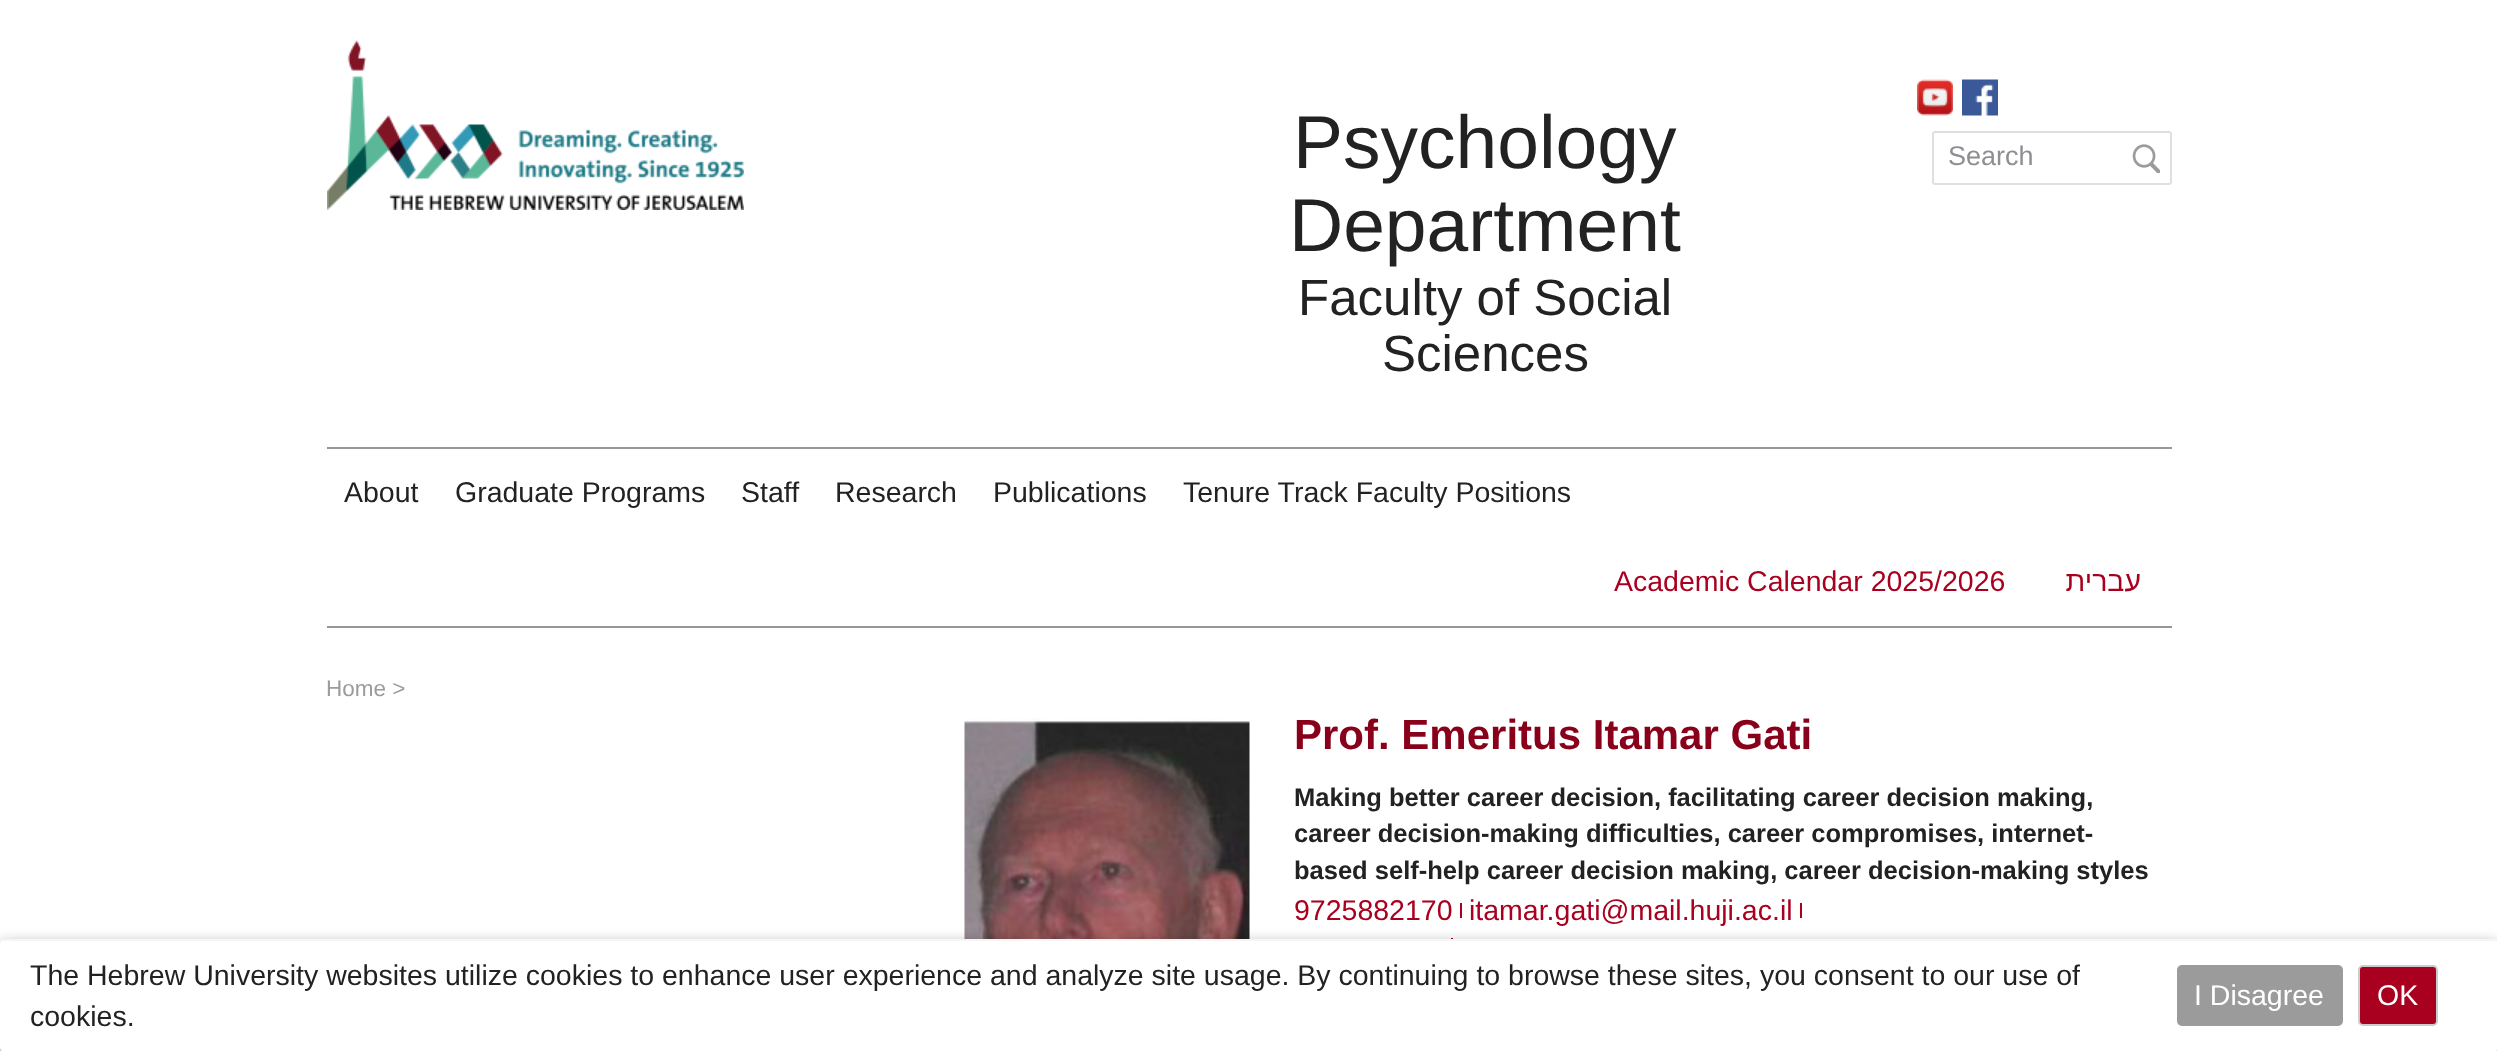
(async () => {
const canvas = document.querySelector("canvas")
canvas.width = 2497
canvas.height = 1051
const c = canvas.getContext("2d")
c.miterLimit = 4
c.fontKerning = "normal"
function T(s,x,y){c.fillText(s,x,y)}
function R(x,y,w,h){c.fillRect(x,y,w,h)}
function Q(x,y,w,h,r){c.beginPath();c.roundRect(x,y,w,h,r);c.fill()}
async function I(src,x,y,w,h){const img=new Image();img.src=src;await img.decode();c.drawImage(img,x,y,w,h)}
c.fillStyle="#fff"
R(0,0,2497,1051)
await I("1.png",327,40,417,170)
c.font="75px Liberation Sans"
c.fillStyle="#222"
T("Psychology",1293,168)
T("Department",1289,251)
c.font="51px Liberation Sans"
T("Faculty of Social",1298,315)
T("Sciences",1382,371)
await I("2.png",1917,79,36,37)
await I("3.png",1962,79,36,37)
c.beginPath()
c.roundRect(1933,132,238,52,2)
c.strokeStyle="#e0e0e0"
c.lineWidth=2
c.stroke()
c.font="27px Liberation Sans"
c.fillStyle="#8e8e93"
T("Search",1948,165)
await I("4.png",2132,144,28,29)
c.fillStyle="#979797"
R(327,447,1845,2)
c.font="28.5px Liberation Sans"
c.fillStyle="#222"
T("About",344,502)
T("Graduate Programs",455,502)
T("Staff",741,502)
T("Research",835,502)
T("Publications",993,502)
T("Tenure Track Faculty Positions",1183,502)
c.fillStyle="#a90020"
T("Academic Calendar 2025/2026",1614,591)
c.direction="rtl"
T("עברית",2141,591)
c.fillStyle="#979797"
R(327,626,1845,2)
c.direction="ltr"
c.font="22.5px Liberation Sans"
c.fillStyle="#9b9b9b"
T("Home >",326,696)
await I("5.png",964,718,286,221)
c.font="bold 42px Liberation Sans"
c.fillStyle="#89001a"
T("Prof. Emeritus Itamar Gati",1294,749)
c.font="bold 25.5px Liberation Sans"
c.fillStyle="#222"
T("Making better career decision, facilitating career decision making,",1294,806)
T("career decision-making difficulties, career compromises, internet-",1294,842)
T("based self-help career decision making, career decision-making styles",1294,879)
c.font="28.5px Liberation Sans"
c.fillStyle="#a90020"
T("9725882170",1294,920)
R(1460,903,2,15)
T("itamar.gati@mail.huji.ac.il",1469,920)
R(1800,903,2,15)
R(1451,938,2,1)
c.fillStyle="#0000007a"
c.filter="blur(7.5px)"
c.beginPath()
c.roundRect(0,945,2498,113,5)
c.fill()
c.filter="none"
c.fillStyle="#fff"
Q(0,939,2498,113,5)
c.fillStyle="#f5f5f5"
R(3,939,2493,2)
c.fillStyle="#222"
T("The Hebrew University websites utilize cookies to enhance user experience and analyze site usage. By continuing to browse these sites, you consent to our use of",30,985)
T("cookies.",30,1026)
c.fillStyle="#9b9b9b"
Q(2177,965,166,61,5)
c.fillStyle="#fff"
T("I Disagree",2194,1005)
c.fillStyle="#a90020"
c.beginPath()
c.roundRect(2359,966,78,59,4)
c.fill()
c.strokeStyle="#ccc"
c.stroke()
c.fillStyle="#fff"
T("OK",2377,1005)
})()
